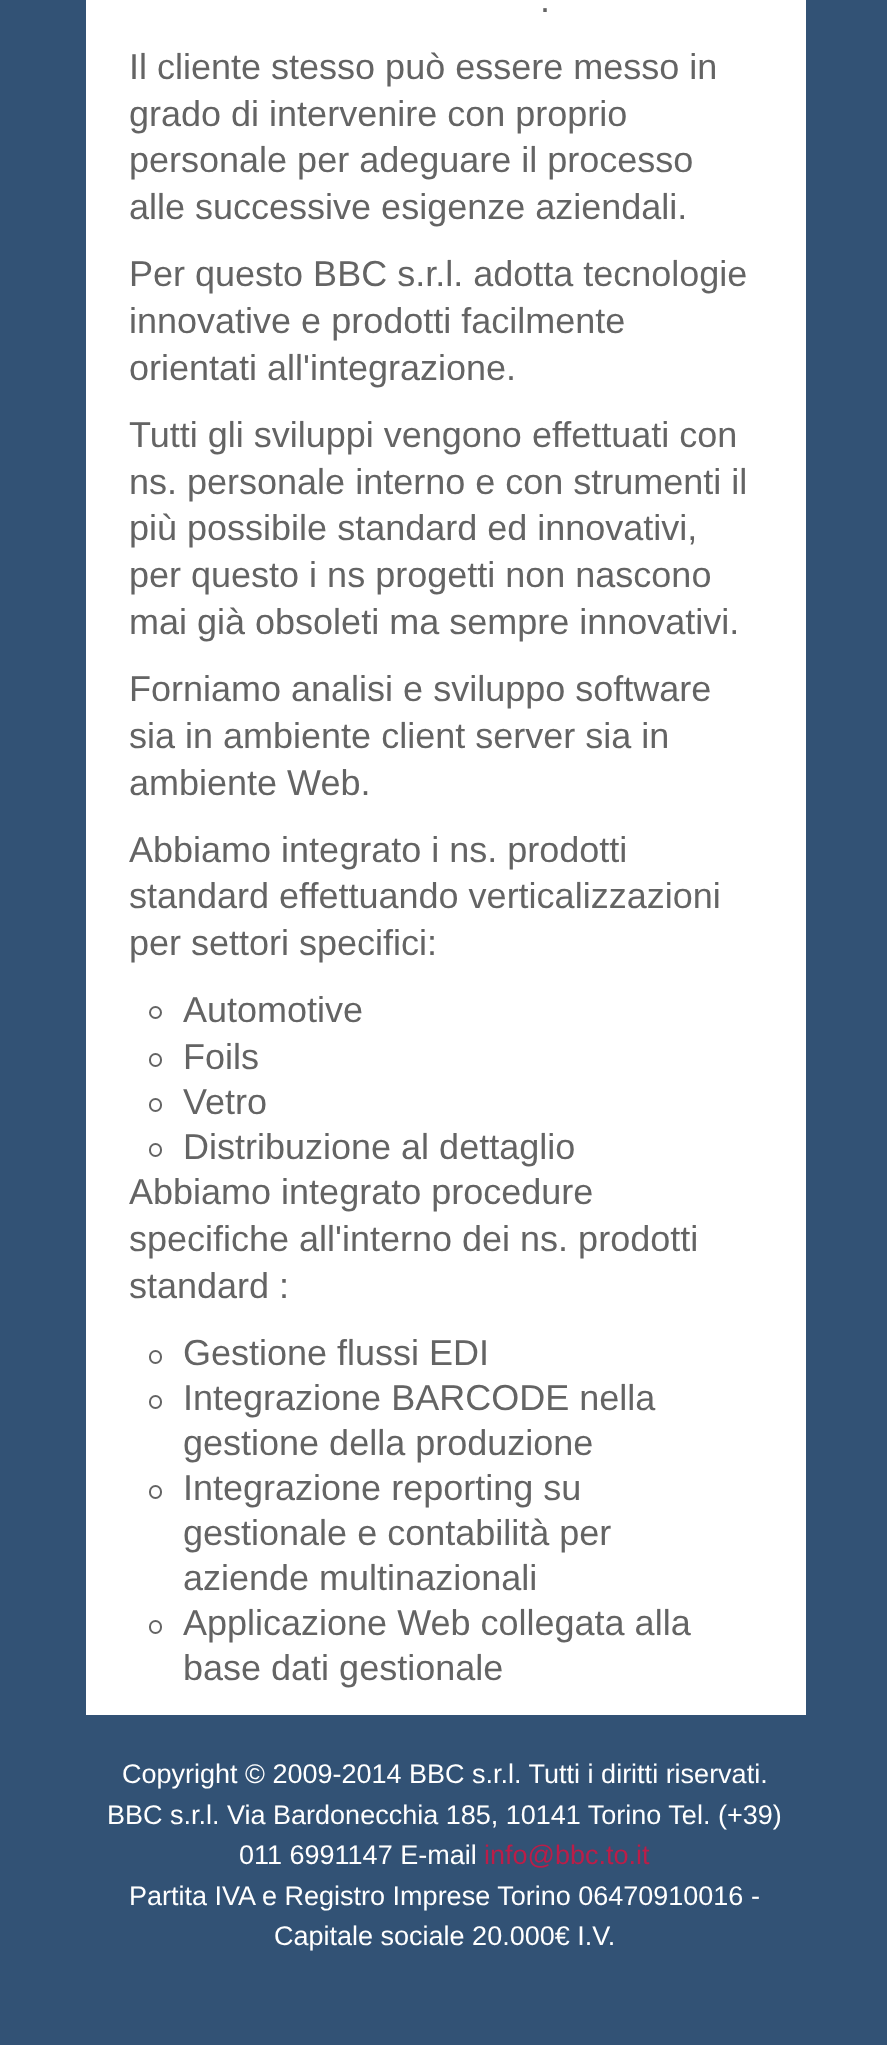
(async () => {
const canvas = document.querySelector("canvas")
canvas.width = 887
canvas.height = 2045
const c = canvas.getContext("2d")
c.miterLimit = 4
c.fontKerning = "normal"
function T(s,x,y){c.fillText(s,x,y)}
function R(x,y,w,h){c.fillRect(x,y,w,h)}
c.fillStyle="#325275"
R(0,0,887,2045)
c.fillStyle="#fff"
R(86,0,720,1715)
c.font="36px Liberation Sans"
c.fillStyle="#646464"
T(".",540,12)
T("Il cliente stesso può essere messo in",129,79)
T("grado di intervenire con proprio",129,126)
T("personale per adeguare il processo",129,172)
T("alle successive esigenze aziendali.",129,219)
T("Per questo BBC s.r.l. adotta tecnologie",129,286)
T("innovative e prodotti facilmente",129,333)
T("orientati all'integrazione.",129,380)
T("Tutti gli sviluppi vengono effettuati con",129,447)
T("ns. personale interno e con strumenti il",129,494)
T("più possibile standard ed innovativi,",129,540)
T("per questo i ns progetti non nascono",129,587)
T("mai già obsoleti ma sempre innovativi.",129,634)
T("Forniamo analisi e sviluppo software",129,701)
T("sia in ambiente client server sia in",129,748)
T("ambiente Web.",129,795)
T("Abbiamo integrato i ns. prodotti",129,862)
T("standard effettuando verticalizzazioni",129,908)
T("per settori specifici:",129,955)
c.beginPath()
c.arc(155.5,1012.5,5.5,0,7)
c.strokeStyle="#646464"
c.lineWidth=2
c.stroke()
T("Automotive",183,1022)
c.beginPath()
c.roundRect(150,1054,11,12,5.5)
c.stroke()
T("Foils",183,1069)
c.beginPath()
c.roundRect(150,1099,11,12,5.5)
c.stroke()
T("Vetro",183,1114)
c.beginPath()
c.roundRect(150,1144,11,12,5.5)
c.stroke()
T("Distribuzione al dettaglio",183,1159)
T("Abbiamo integrato procedure",129,1204)
T("specifiche all'interno dei ns. prodotti",129,1251)
T("standard :",129,1298)
c.beginPath()
c.roundRect(150,1351,11,12,5.5)
c.stroke()
T("Gestione flussi EDI",183,1365)
c.beginPath()
c.roundRect(150,1396,11,12,5.5)
c.stroke()
T("Integrazione BARCODE nella",183,1410)
T("gestione della produzione",183,1455)
c.beginPath()
c.roundRect(150,1486,11,12,5.5)
c.stroke()
T("Integrazione reporting su",183,1500)
T("gestionale e contabilità per",183,1545)
T("aziende multinazionali",183,1590)
c.beginPath()
c.roundRect(150,1621,11,12,5.5)
c.stroke()
T("Applicazione Web collegata alla",183,1635)
T("base dati gestionale",183,1680)
c.font="27px Liberation Sans"
c.fillStyle="#fff"
T("Copyright © 2009-2014 BBC s.r.l. Tutti i diritti riservati.",122,1783)
T("BBC s.r.l. Via Bardonecchia 185, 10141 Torino Tel. (+39)",107,1824)
T("011 6991147 E-mail",239,1864)
c.fillStyle="#bb1d48"
T("info@bbc.to.it",484,1864)
c.fillStyle="#fff"
T("Partita IVA e Registro Imprese Torino 06470910016 -",129,1905)
T("Capitale sociale 20.000€ I.V.",274,1945)
})()
